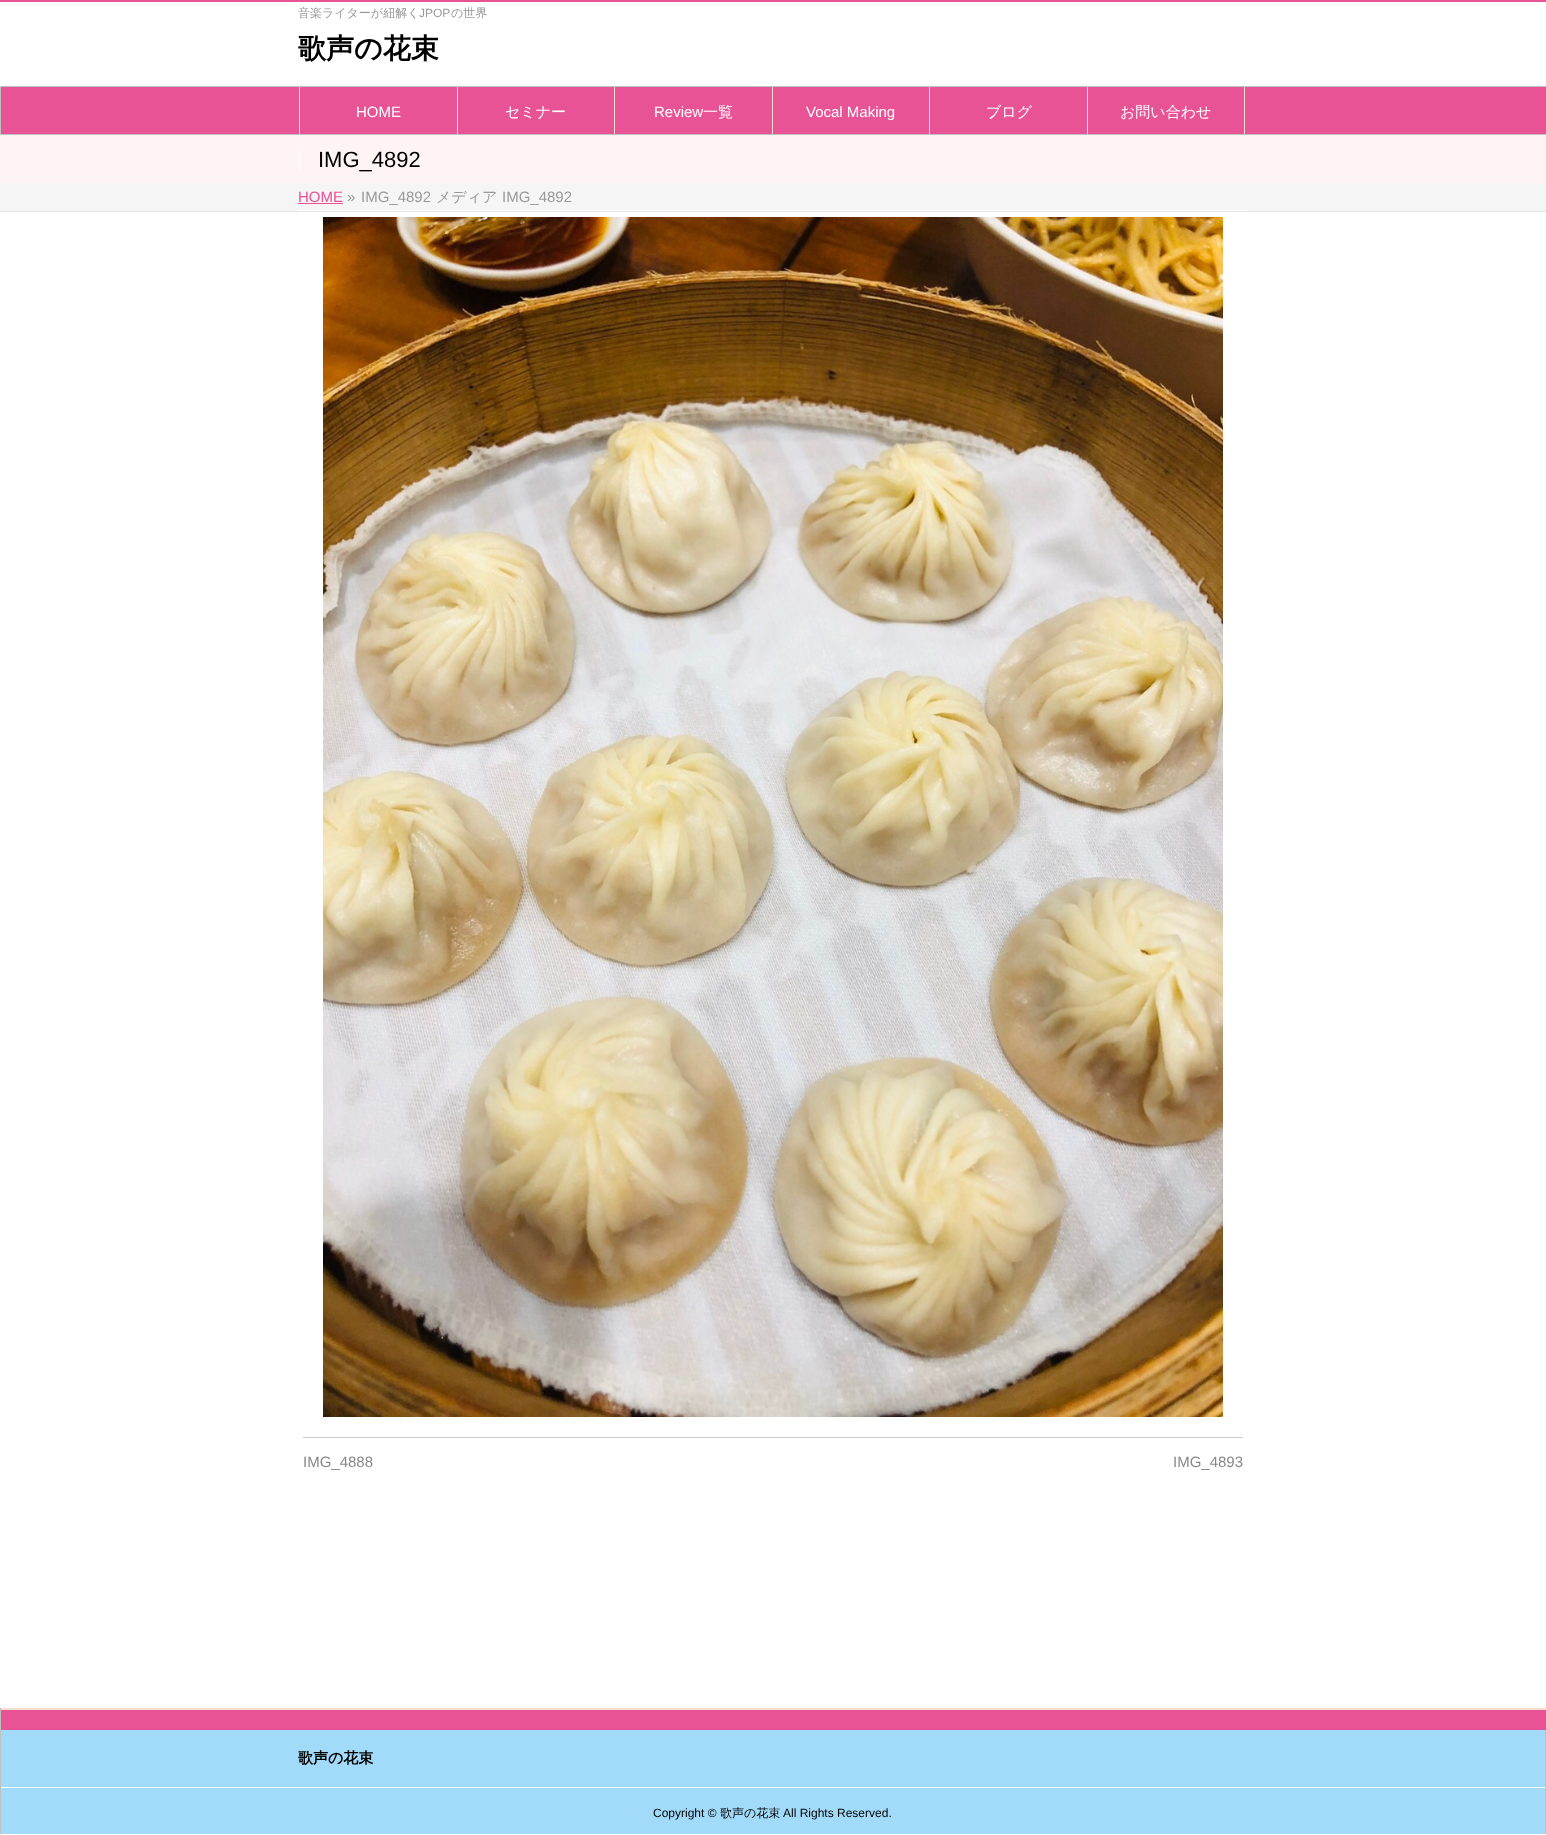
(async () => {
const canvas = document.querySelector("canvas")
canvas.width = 1546
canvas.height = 1835
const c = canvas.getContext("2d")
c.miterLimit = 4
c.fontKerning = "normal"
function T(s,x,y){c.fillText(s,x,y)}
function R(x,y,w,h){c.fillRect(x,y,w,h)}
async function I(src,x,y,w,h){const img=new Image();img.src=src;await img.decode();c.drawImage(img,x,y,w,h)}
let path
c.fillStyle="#fff"
R(0,0,1546,1835)
c.fillStyle="#e85396"
R(0,0,1546,2)
c.font="500 12px WenQuanYi Zen Hei"
c.fillStyle="#999"
T("音楽ライターが紐解く",298,17)
c.font="12px Liberation Sans"
T("JPOP",419,17)
c.font="500 12px WenQuanYi Zen Hei"
T("の世界",451,17)
c.font="bold 28px WenQuanYi Zen Hei"
c.fillStyle="#000"
T("歌声の花束",298,58)
c.fillStyle="#e85396"
c.beginPath()
c.rect(.5,86.5,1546,48)
c.fill()
c.strokeStyle="#c0c0c0"
c.stroke()
c.fillStyle="#f4e0d2"
R(299,87,1,47)
R(457,87,1,47)
c.font="15px Liberation Sans"
c.fillStyle="#fff"
T("HOME",356,117)
c.fillStyle="#f4e0d2"
R(614,87,1,47)
c.font="500 15px WenQuanYi Zen Hei"
c.fillStyle="#fff"
T("セミナー",505,117)
c.fillStyle="#f4e0d2"
R(772,87,1,47)
c.font="15px Liberation Sans"
c.fillStyle="#fff"
T("Review",654,117)
c.font="500 15px WenQuanYi Zen Hei"
T("一覧",703,117)
c.fillStyle="#f4e0d2"
R(929,87,1,47)
c.font="15px Liberation Sans"
c.fillStyle="#fff"
T("Vocal Making",806,117)
c.fillStyle="#f4e0d2"
R(1087,87,1,47)
c.font="500 15px WenQuanYi Zen Hei"
c.fillStyle="#fff"
T("ブログ",986,117)
c.fillStyle="#f4e0d2"
R(1244,87,1,47)
c.fillStyle="#fff"
T("お問い合わせ",1120,117)
c.fillStyle="#fef4f4"
R(0,135,1546,48)
await I("1.png",298,149,3,21)
c.font="22px Liberation Sans"
c.fillStyle="#000"
T("IMG_4892",318,167)
c.fillStyle="#f5f5f5"
R(0,183,1546,28)
c.fillStyle="#e5e5e5"
R(0,211,1546,1)
c.fillStyle="#fff"
R(298,210,950,1)
c.font="15px Liberation Sans"
c.fillStyle="#e85396"
T("HOME",298,202)
R(298,203,45,1)
c.fillStyle="#999"
T("»",347,202)
T("IMG_4892",361,202)
c.font="500 15px WenQuanYi Zen Hei"
T("メディア",436,202)
c.font="15px Liberation Sans"
T("IMG_4892",502,202)
await I("2.png",323,217,900,1200)
c.fillStyle="#ccc"
R(303,1437,940,1)
c.fillStyle="#888"
T("IMG_4888",303,1467)
T("IMG_4893",1173,1467)
c.fillStyle="#e85396"
R(0,1708,1546,22)
c.fillStyle="#f4e0d2"
path = new Path2D("M0 1708h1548l-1 2h-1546z")
c.fill(path)
c.fillStyle="#c0c0c0"
path = new Path2D("M0 1730v-22l1 2v20z")
c.fill(path)
c.fillStyle="#a2dbf9"
R(1,1730,1544,57)
c.font="bold 15px WenQuanYi Zen Hei"
c.fillStyle="#000"
T("歌声の花束",298,1763)
c.fillStyle="#a2dbf9"
R(1,1788,1544,46)
c.fillStyle="#c0c0c0"
R(1545,1730,1,104)
R(0,1730,1,104)
c.font="12px Liberation Sans"
c.fillStyle="#000"
T("Copyright ©",653,1817)
c.font="500 12px WenQuanYi Zen Hei"
T("歌声の花束",720,1817)
c.font="12px Liberation Sans"
T("All Rights Reserved.",783,1817)
})()
